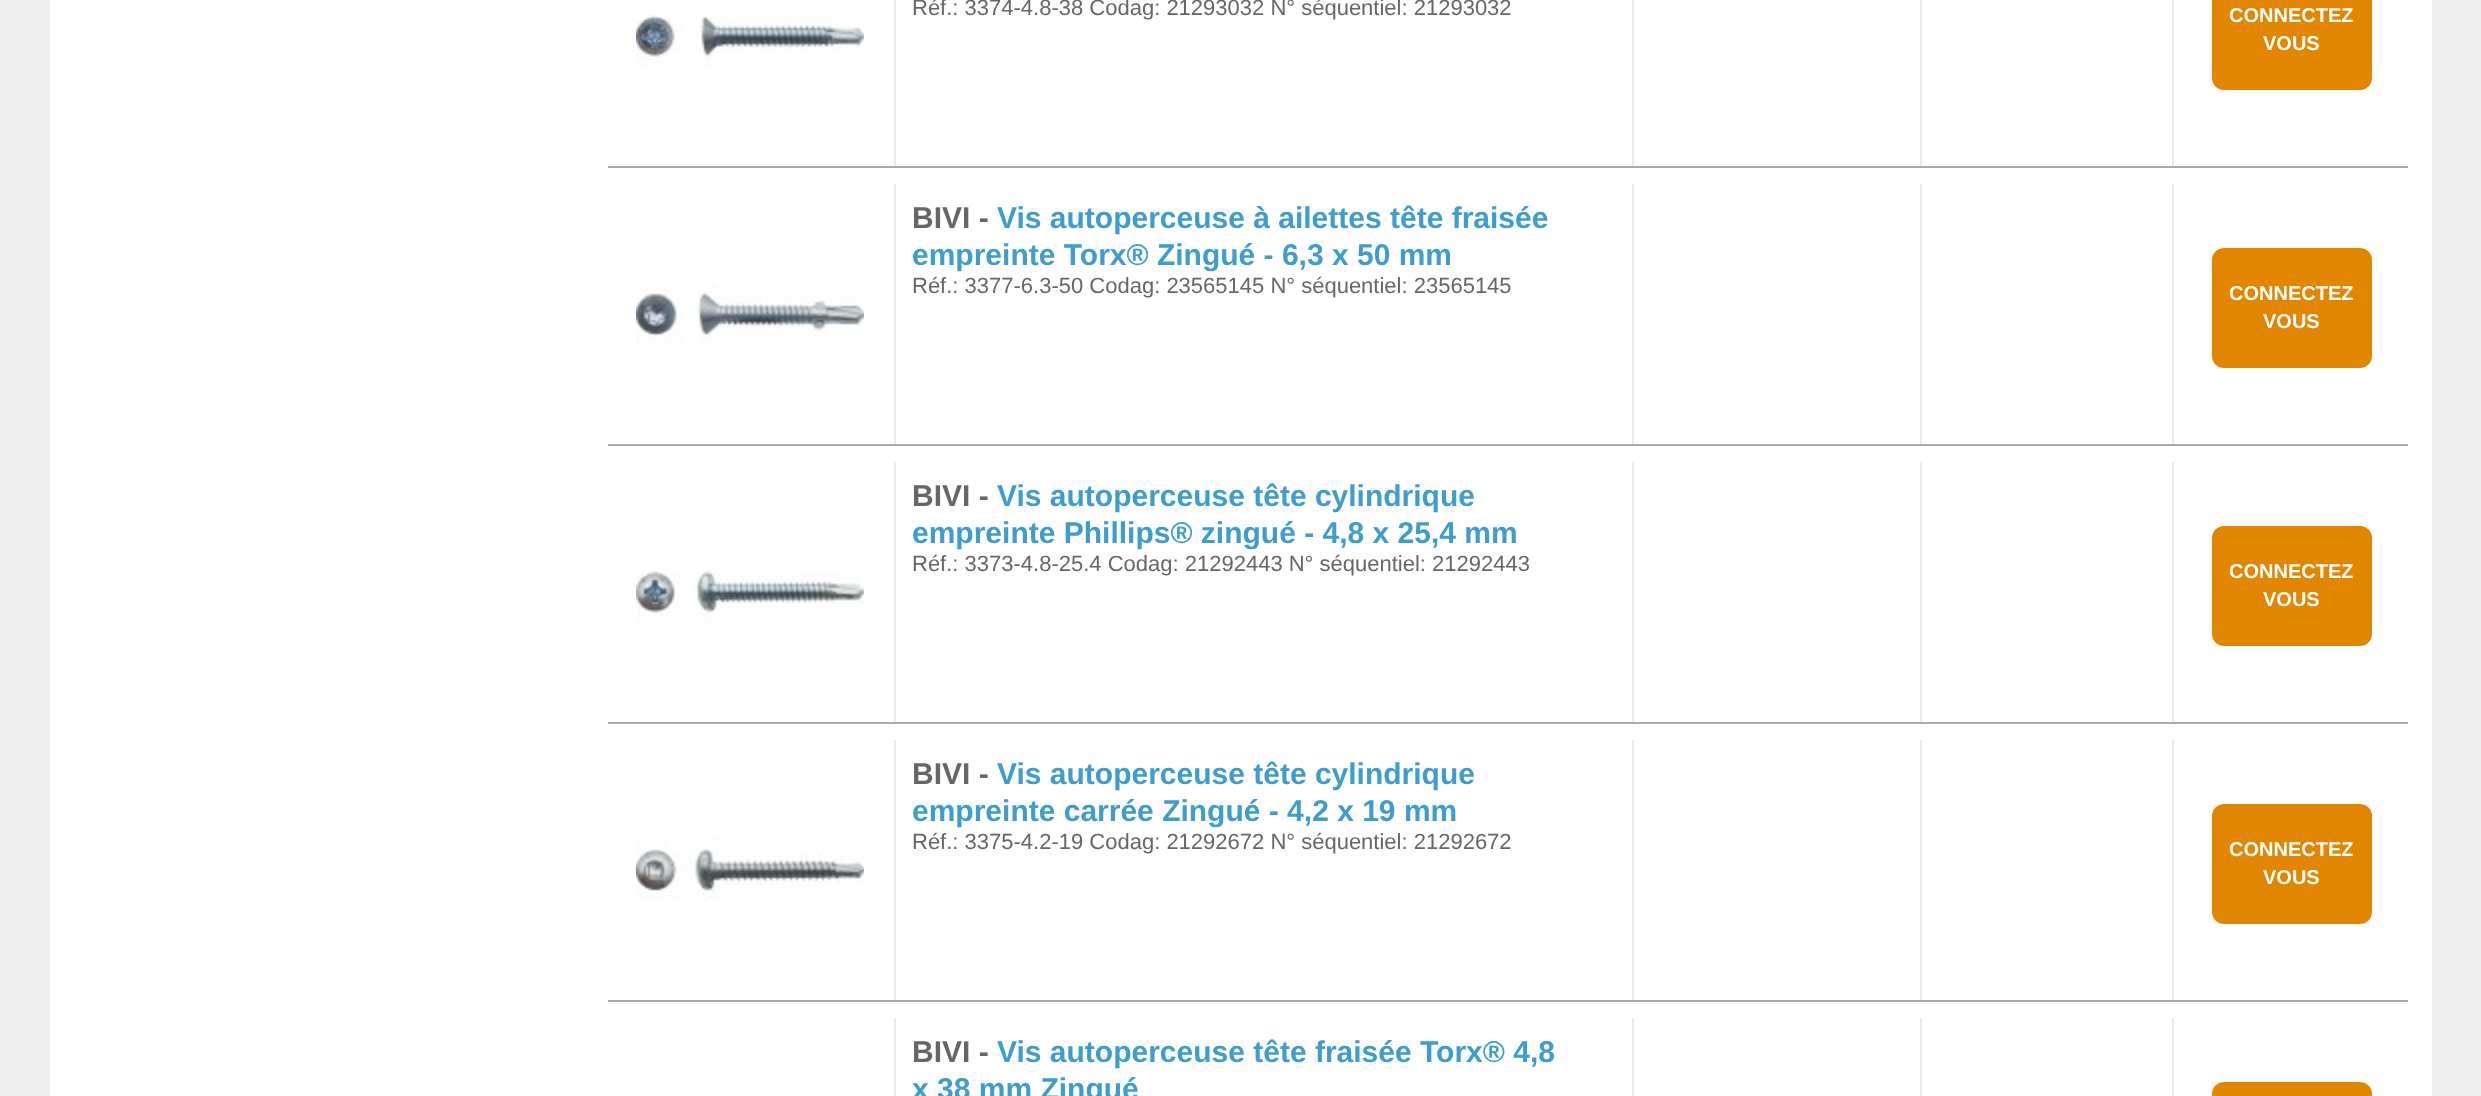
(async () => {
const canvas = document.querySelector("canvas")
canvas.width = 2481
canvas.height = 1096
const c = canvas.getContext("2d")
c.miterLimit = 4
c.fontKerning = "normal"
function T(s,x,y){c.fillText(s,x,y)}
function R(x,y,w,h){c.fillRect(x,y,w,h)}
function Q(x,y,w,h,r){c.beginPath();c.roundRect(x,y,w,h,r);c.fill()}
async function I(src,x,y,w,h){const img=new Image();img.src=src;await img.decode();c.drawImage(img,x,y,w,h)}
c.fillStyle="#eee"
R(0,0,2481,1096)
c.fillStyle="#fff"
R(50,0,2382,1096)
c.fillStyle="#aaa"
R(608,166,1800,2)
c.fillStyle="#eaeaea"
R(894,0,2,166)
await I("1.png",636,15,228,51)
R(1632,0,2,166)
c.font="22px Liberation Sans"
c.fillStyle="#666"
T("Réf.: 3374-4.8-38 Codag: 21293032 N° séquentiel: 21293032",912,15)
c.fillStyle="#eaeaea"
R(1920,0,2,166)
R(2172,0,2,166)
c.fillStyle="#e28600"
Q(2212,-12,160,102,12)
c.font="bold 20px Liberation Sans"
c.fillStyle="#fff"
T("CONNECTEZ",2229,22)
T("VOUS",2263,50)
c.fillStyle="#aaa"
R(608,444,1800,2)
c.fillStyle="#eaeaea"
R(894,184,2,260)
await I("2.png",636,282,228,62)
R(1632,184,2,260)
c.font="bold 30px Liberation Sans"
c.fillStyle="#666"
T("BIVI -",912,228)
c.fillStyle="#3d9dcf"
T("Vis autoperceuse à ailettes tête fraisée",997,228)
T("empreinte Torx® Zingué - 6,3 x 50 mm",912,265)
c.font="22px Liberation Sans"
c.fillStyle="#666"
T("Réf.: 3377-6.3-50 Codag: 23565145 N° séquentiel: 23565145",912,293)
c.fillStyle="#eaeaea"
R(1920,184,2,260)
R(2172,184,2,260)
c.fillStyle="#e28600"
Q(2212,248,160,120,12)
c.font="bold 20px Liberation Sans"
c.fillStyle="#fff"
T("CONNECTEZ",2229,300)
T("VOUS",2263,328)
c.fillStyle="#aaa"
R(608,722,1800,2)
c.fillStyle="#eaeaea"
R(894,462,2,260)
await I("3.png",636,570,228,67)
R(1632,462,2,260)
c.font="bold 30px Liberation Sans"
c.fillStyle="#666"
T("BIVI -",912,506)
c.fillStyle="#3d9dcf"
T("Vis autoperceuse tête cylindrique",997,506)
T("empreinte Phillips® zingué - 4,8 x 25,4 mm",912,543)
c.font="22px Liberation Sans"
c.fillStyle="#666"
T("Réf.: 3373-4.8-25.4 Codag: 21292443 N° séquentiel: 21292443",912,571)
c.fillStyle="#eaeaea"
R(1920,462,2,260)
R(2172,462,2,260)
c.fillStyle="#e28600"
Q(2212,526,160,120,12)
c.font="bold 20px Liberation Sans"
c.fillStyle="#fff"
T("CONNECTEZ",2229,578)
T("VOUS",2263,606)
c.fillStyle="#aaa"
R(608,1000,1800,2)
c.fillStyle="#eaeaea"
R(894,740,2,260)
await I("4.png",636,838,228,62)
R(1632,740,2,260)
c.font="bold 30px Liberation Sans"
c.fillStyle="#666"
T("BIVI -",912,784)
c.fillStyle="#3d9dcf"
T("Vis autoperceuse tête cylindrique",997,784)
T("empreinte carrée Zingué - 4,2 x 19 mm",912,821)
c.font="22px Liberation Sans"
c.fillStyle="#666"
T("Réf.: 3375-4.2-19 Codag: 21292672 N° séquentiel: 21292672",912,849)
c.fillStyle="#eaeaea"
R(1920,740,2,260)
R(2172,740,2,260)
c.fillStyle="#e28600"
Q(2212,804,160,120,12)
c.font="bold 20px Liberation Sans"
c.fillStyle="#fff"
T("CONNECTEZ",2229,856)
T("VOUS",2263,884)
c.fillStyle="#eaeaea"
R(894,1018,2,78)
R(1632,1018,2,78)
c.font="bold 30px Liberation Sans"
c.fillStyle="#666"
T("BIVI -",912,1062)
c.fillStyle="#3d9dcf"
T("Vis autoperceuse tête fraisée Torx® 4,8",997,1062)
T("x 38 mm Zingué",912,1099)
c.fillStyle="#eaeaea"
R(1920,1018,2,78)
R(2172,1018,2,78)
c.fillStyle="#e28600"
Q(2212,1082,160,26,12)
})()
